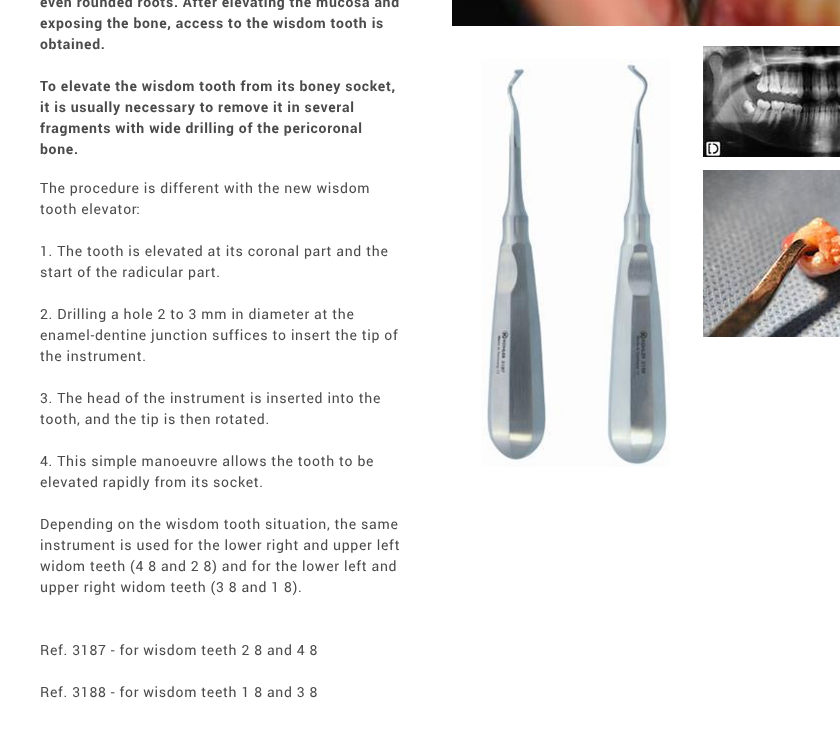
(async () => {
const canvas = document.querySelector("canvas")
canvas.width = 840
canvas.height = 738
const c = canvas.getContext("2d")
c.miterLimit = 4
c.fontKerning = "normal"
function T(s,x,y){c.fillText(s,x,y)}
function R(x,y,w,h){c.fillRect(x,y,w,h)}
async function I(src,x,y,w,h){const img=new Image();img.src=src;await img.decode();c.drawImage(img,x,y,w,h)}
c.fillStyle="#fff"
R(0,0,840,738)
c.letterSpacing="0.7px"
c.font="bold 14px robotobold"
c.fillStyle="#4c4b4c"
T("even rounded roots. After elevating the mucosa and",40,7)
T("exposing the bone, access to the wisdom tooth is",40,28)
T("obtained.",40,49)
T("To elevate the wisdom tooth from its boney socket,",40,91)
T("it is usually necessary to remove it in several",40,112)
T("fragments with wide drilling of the pericoronal",40,133)
T("bone.",40,154)
c.font="14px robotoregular"
T("The procedure is different with the new wisdom",40,193)
T("tooth elevator:",40,214)
T("1. The tooth is elevated at its coronal part and the",40,256)
T("start of the radicular part.",40,277)
T("2. Drilling a hole 2 to 3 mm in diameter at the",40,319)
T("enamel-dentine junction suffices to insert the tip of",40,340)
T("the instrument.",40,361)
T("3. The head of the instrument is inserted into the",40,403)
T("tooth, and the tip is then rotated.",40,424)
T("4. This simple manoeuvre allows the tooth to be",40,466)
T("elevated rapidly from its socket.",40,487)
T("Depending on the wisdom tooth situation, the same",40,529)
T("instrument is used for the lower right and upper left",40,550)
T("widom teeth (4 8 and 2 8) and for the lower left and",40,571)
T("upper right widom teeth (3 8 and 1 8).",40,592)
T("Ref. 3187 - for wisdom teeth 2 8 and 4 8",40,655)
T("Ref. 3188 - for wisdom teeth 1 8 and 3 8",40,697)
await I("1.png",452,0,388,26)
await I("2.png",481,59,189,408)
await I("3.png",703,46,137,111)
await I("4.png",703,170,137,167)
})()
